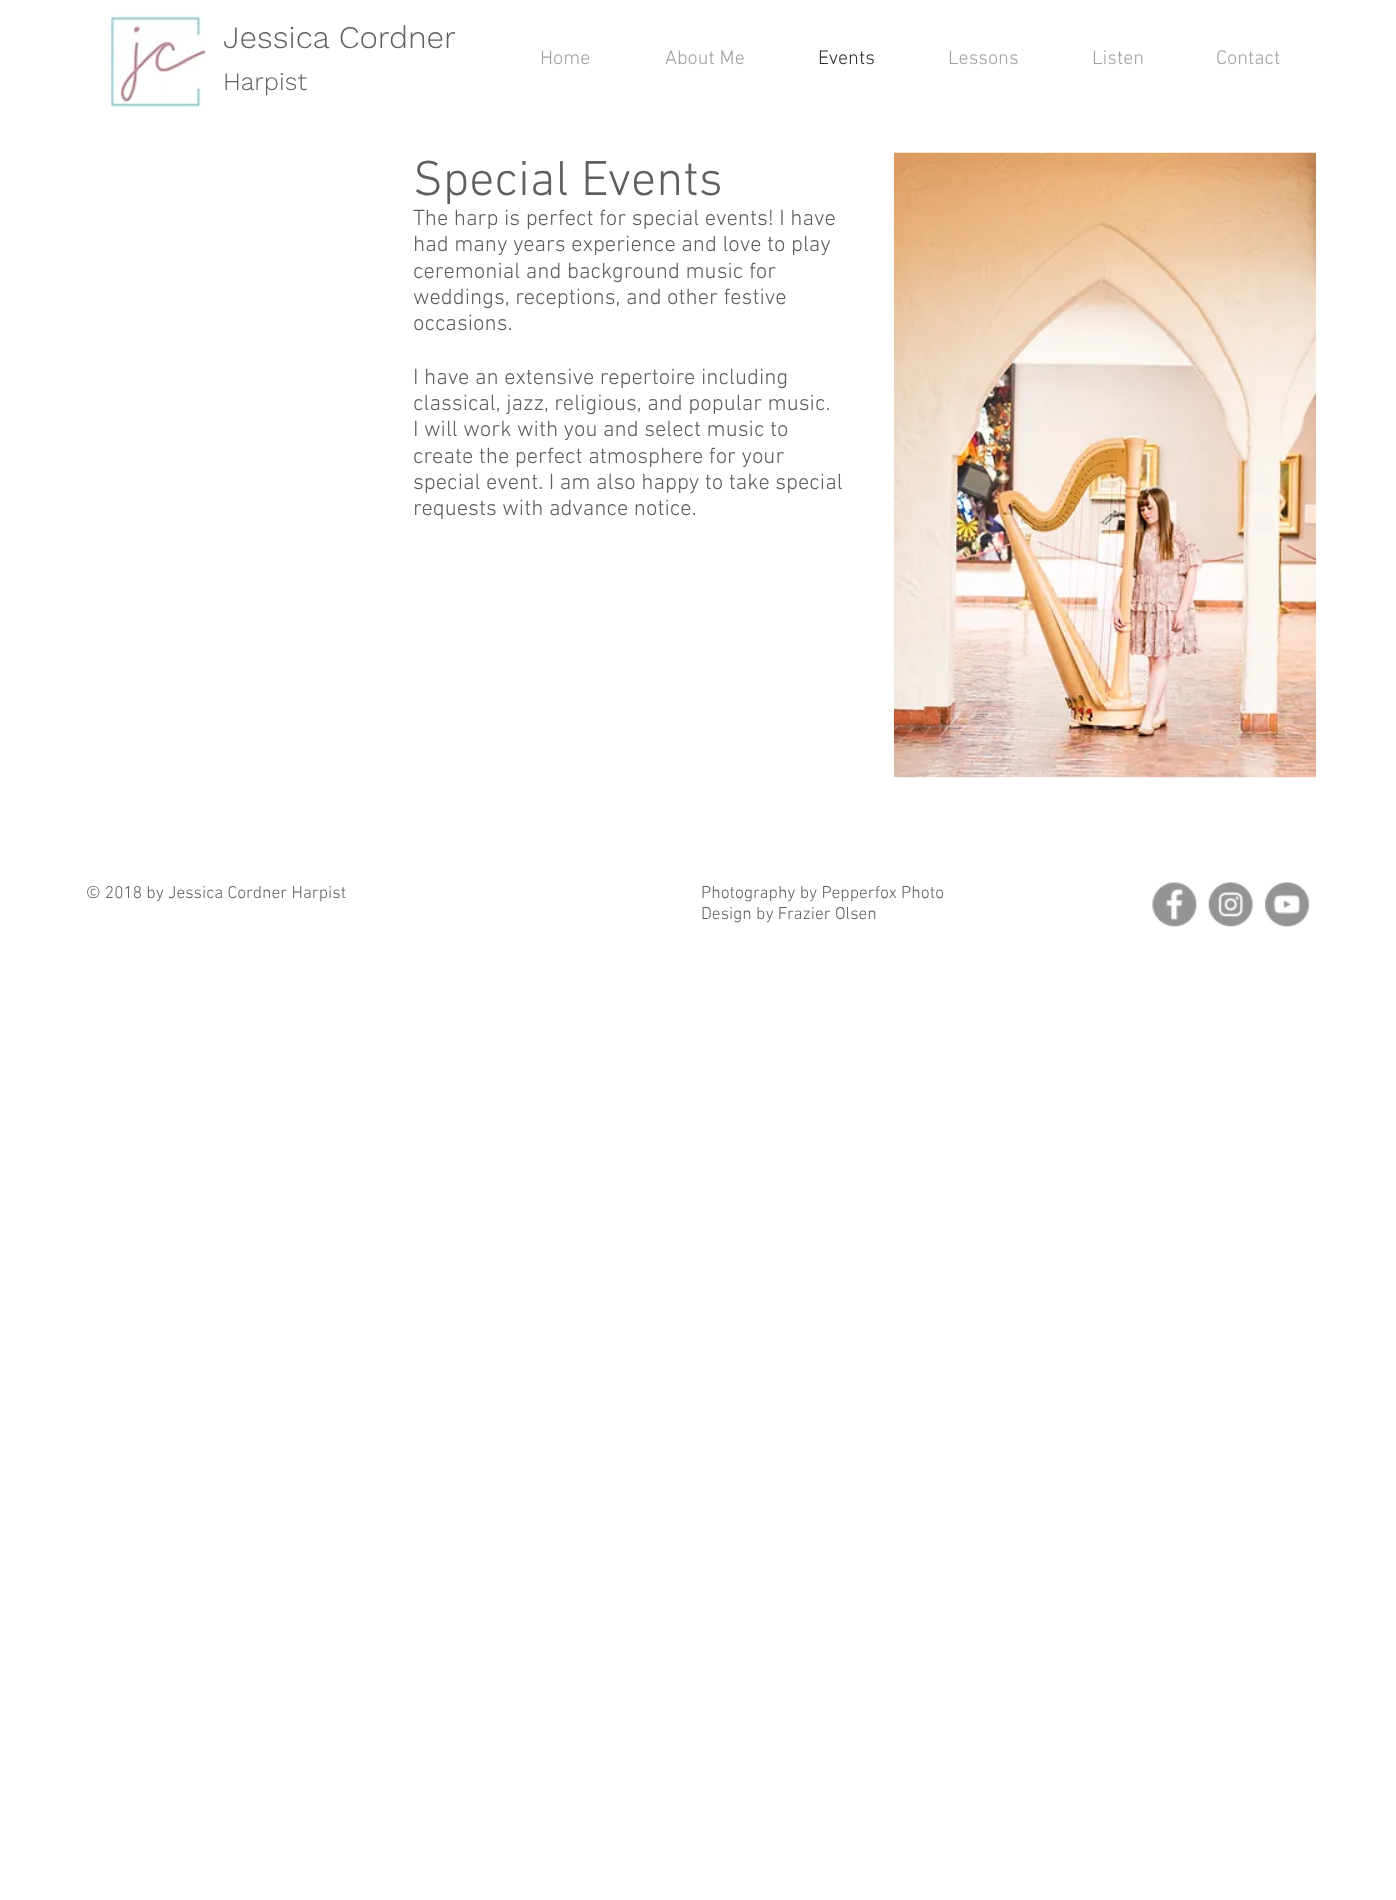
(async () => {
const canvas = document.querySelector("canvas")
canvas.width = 1396
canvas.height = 1900
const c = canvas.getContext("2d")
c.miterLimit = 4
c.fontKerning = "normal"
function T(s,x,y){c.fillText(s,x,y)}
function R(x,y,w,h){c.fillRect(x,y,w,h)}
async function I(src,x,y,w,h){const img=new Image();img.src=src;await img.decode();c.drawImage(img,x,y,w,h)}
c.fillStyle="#fff"
R(0,0,1396,1900)
await I("1.png",106,15,100,93)
c.font="300 31.25px Work Sans"
c.fillStyle="#605e5e"
T("Jessica Cordner",223,48)
c.font="300 20px 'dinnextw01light'"
c.fillStyle="#a0a09f"
T("Home",540,64)
T("About Me",665,64)
c.fillStyle="#2f2e2e"
T("Events",818,64)
c.fillStyle="#a0a09f"
T("Lessons",948,64)
T("Listen",1092,64)
T("Contact",1216,64)
c.font="300 25px Work Sans"
c.fillStyle="#605e5e"
T("Harpist",223,90)
c.font="300 50px 'dinnextw01light'"
T("Special Events",413,195)
await I("2.png",893,152,424,626)
c.font="300 22.5px 'dinnextw01light'"
T("The harp is perfect for special events! I have",413,225)
T("had many years experience and love to play",413,251)
T("ceremonial and background music for",413,278)
T("weddings, receptions, and other festive",413,304)
T("occasions.",413,330)
T("I have an extensive repertoire including",413,384)
T("classical, jazz, religious, and popular music.",413,410)
T("I will work with you and select music to",413,436)
T("create the perfect atmosphere for your",413,463)
T("special event. I am also happy to take special",413,489)
T("requests with advance notice.",413,515)
c.font="300 17.5px 'dinnextw01light'"
T("© 2018 by Jessica Cordner Harpist",86,898)
T("Photography by Pepperfox Photo",701,898)
T("Design by Frazier Olsen",701,919)
await I("3.png",1152,882,45,45)
await I("4.png",1208,882,45,45)
await I("5.png",1265,882,44,45)
})()
